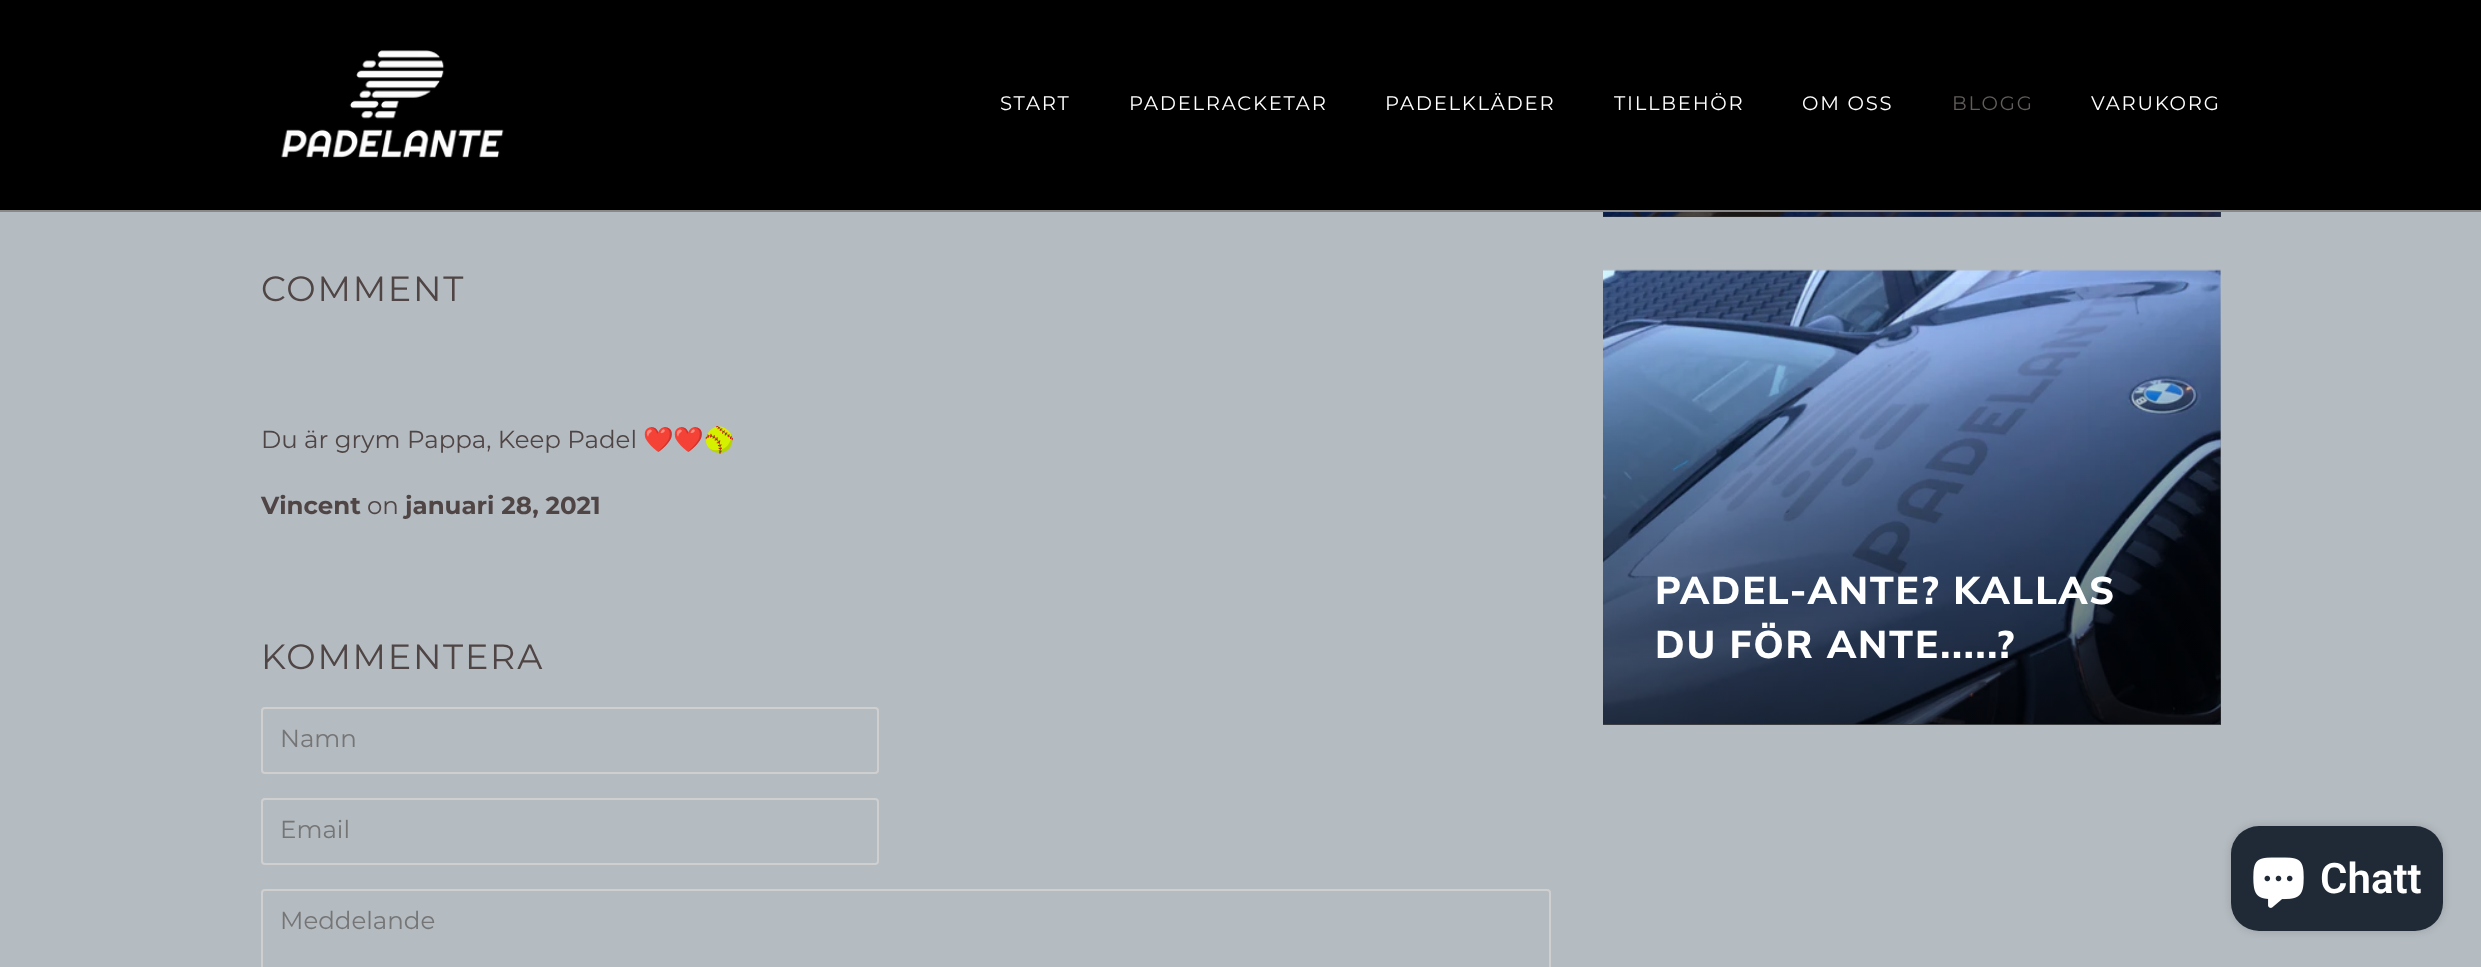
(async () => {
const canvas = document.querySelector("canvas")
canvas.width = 2481
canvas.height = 967
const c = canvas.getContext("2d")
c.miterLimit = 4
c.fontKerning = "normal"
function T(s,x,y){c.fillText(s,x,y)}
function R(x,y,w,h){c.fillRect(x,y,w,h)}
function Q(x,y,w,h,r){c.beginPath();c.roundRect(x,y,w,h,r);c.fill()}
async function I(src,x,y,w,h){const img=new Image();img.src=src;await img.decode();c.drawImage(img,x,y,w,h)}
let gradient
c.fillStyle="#b4bbc1"
R(0,0,2481,967)
c.fillStyle="#000"
R(0,0,2481,210)
c.fillStyle="#888"
R(0,210,2481,2)
await I("1.png",281,50,223,108)
c.letterSpacing="1.75px"
c.font="19.6px Montserrat"
c.fillStyle="#fff"
T("START",1000,110)
T("PADELRACKETAR",1129,110)
T("PADELKLÄDER",1385,110)
T("TILLBEHÖR",1614,110)
T("OM OSS",1802,110)
c.fillStyle="#605d5a"
T("BLOGG",1952,110)
c.fillStyle="#fff"
T("VARUKORG",2091,110)
c.font="35px Montserrat"
c.fillStyle="#504545"
T("COMMENT",261,301)
c.letterSpacing="0px"
c.font="24.5px Montserrat"
T("Du är grym Pappa, Keep Padel",261,448)
c.font="24.5px Noto Color Emoji"
T("❤️❤️🥎",643,448)
c.font="bold 24.5px Montserrat"
T("Vincent",261,514)
c.font="24.5px Montserrat"
T("on",367,514)
c.font="bold 24.5px Montserrat"
T("januari 28, 2021",405,514)
c.letterSpacing="1.75px"
c.font="35px Montserrat"
T("KOMMENTERA",261,669)
c.beginPath()
c.roundRect(262,708,616,65,3)
c.strokeStyle="#cfcfcf"
c.lineWidth=2
c.stroke()
c.letterSpacing="0px"
c.font="24.5px Montserrat"
c.fillStyle="#757575"
T("Namn",280,747)
c.beginPath()
c.roundRect(262,799,616,65,3)
c.stroke()
T("Email",280,838)
c.beginPath()
c.roundRect(262,890,1288,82,3)
c.stroke()
T("Meddelande",280,929)
await I("2.png",1603,212,618,5)
gradient = c.createLinearGradient(1912,-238,1912,217)
gradient.addColorStop(0,"#00000000")
gradient.addColorStop(1,"#000000a6")
c.fillStyle = gradient
R(1603,212,618,5)
await I("3.png",1603,269,618,456)
gradient = c.createLinearGradient(1912,269,1912,725)
gradient.addColorStop(0,"#00000000")
gradient.addColorStop(1,"#000000a6")
c.fillStyle = gradient
R(1603,284,618,441)
c.letterSpacing="1.75px"
c.font="800 38.5px Muli"
c.fillStyle="#fff"
T("PADEL-ANTE? KALLAS",1655,604)
T("DU FÖR ANTE.....?",1655,658)
c.fillStyle="#00000026"
c.filter="blur(4.5px)"
c.beginPath()
c.roundRect(2231,826,212,105,28)
c.fill()
c.filter="none"
c.fillStyle="#202a36"
Q(2231,826,212,105,28)
await I("4.png",2253,857,51,51)
c.letterSpacing="0px"
c.font="600 42px Roboto"
c.fillStyle="#fff"
T("Chatt",2320,893)
})()
